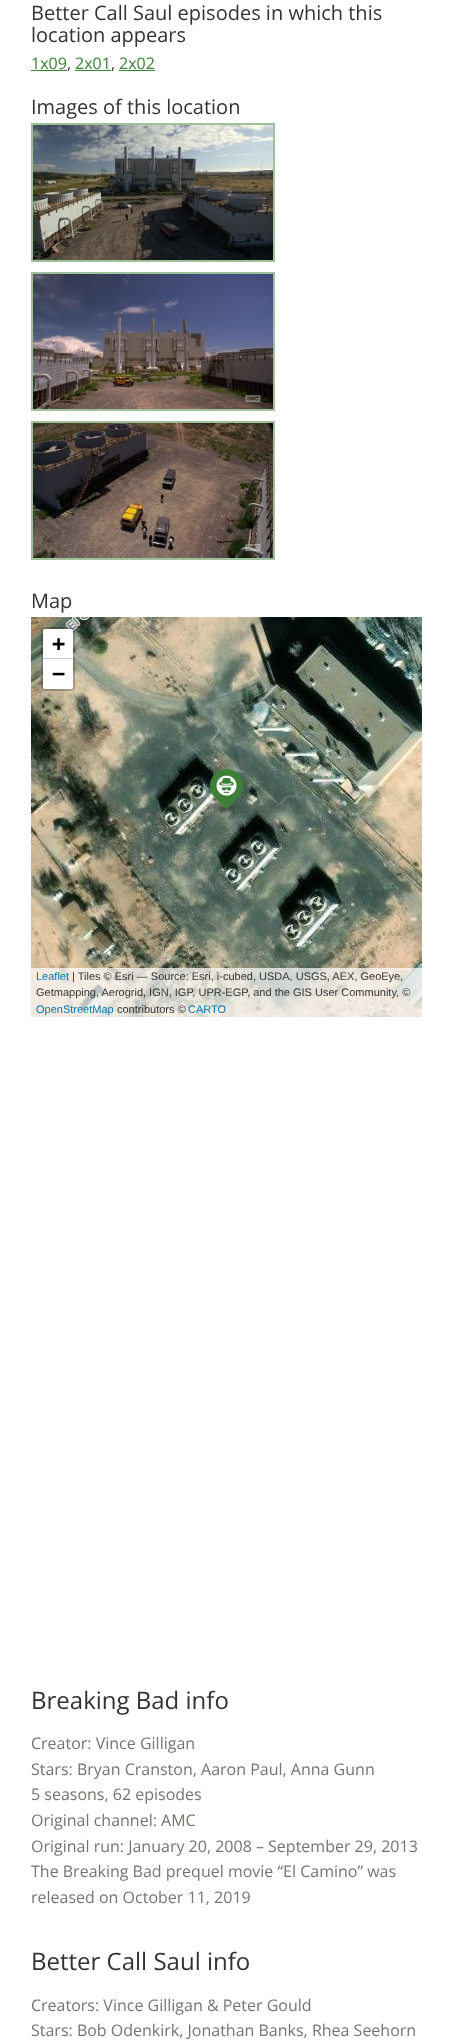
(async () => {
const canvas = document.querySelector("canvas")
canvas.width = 453
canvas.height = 2041
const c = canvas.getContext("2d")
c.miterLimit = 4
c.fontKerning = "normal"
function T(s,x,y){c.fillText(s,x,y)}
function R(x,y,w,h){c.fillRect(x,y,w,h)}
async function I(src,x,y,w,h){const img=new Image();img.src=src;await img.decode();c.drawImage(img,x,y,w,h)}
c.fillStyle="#fff"
R(0,0,453,2041)
c.font="20px Open Sans"
c.fillStyle="#333"
T("Better Call Saul episodes in which this",31,20)
T("location appears",31,42)
c.font="16px Open Sans"
c.fillStyle="#3c8137"
T("1x09",31,69)
R(31,70,36,1)
c.fillStyle="#333"
T(",",67,69)
c.fillStyle="#3c8137"
T("2x01",75,69)
R(75,70,36,1)
c.fillStyle="#333"
T(",",111,69)
c.fillStyle="#3c8137"
T("2x02",119,69)
R(119,70,36,1)
c.font="20px Open Sans"
c.fillStyle="#333"
T("Images of this location",31,114)
c.fillStyle="#9ec09b"
R(31,123,244,139)
await I("1.png",33,125,240,135)
R(31,272,244,139)
await I("2.png",33,274,240,135)
R(31,421,244,139)
await I("3.png",33,423,240,135)
c.fillStyle="#333"
T("Map",31,608)
await I("4.png",31,617,225,37)
await I("5.png",256,617,166,37)
await I("6.png",31,654,225,256)
await I("7.png",256,654,166,256)
await I("8.png",31,910,225,107)
await I("9.png",256,910,166,107)
await I("10.png",65,617,25,15)
await I("11.png",210,769,33,45)
c.beginPath()
c.roundRect(42,628,32,62,3)
c.strokeStyle="#00000033"
c.lineWidth=2
c.stroke()
c.fillStyle="#fff"
c.beginPath()
c.roundRect(43,629,30,30,[2,2,0,0])
c.fill()
c.fillStyle="#ccc"
R(43,658,30,1)
c.font="bold 22px DejaVu Sans Mono"
c.fillStyle="#000"
T("+",52,651)
c.fillStyle="#fff"
c.beginPath()
c.roundRect(43,659,30,30,[0,0,2,2])
c.fill()
c.fillStyle="#000"
T("−",52,681)
c.fillStyle="#ffffffb3"
R(31,968,391,49)
c.font="11px Liberation Sans"
c.fillStyle="#0078a8"
T("Leaflet",36,980)
c.fillStyle="#333"
T("| Tiles © Esri — Source: Esri, i-cubed, USDA, USGS, AEX, GeoEye,",72,980)
T("Getmapping, Aerogrid, IGN, IGP, UPR-EGP, and the GIS User Community, ©",36,996)
c.fillStyle="#0078a8"
T("OpenStreetMap",36,1013)
c.fillStyle="#333"
T("contributors ©",117,1013)
c.fillStyle="#0078a8"
T("CARTO",188,1013)
c.font="24px Open Sans"
c.fillStyle="#333"
T("Breaking Bad info",31,1709)
c.font="16px Open Sans"
c.fillStyle="#6f786e"
T("Creator: Vince Gilligan",31,1749)
T("Stars: Bryan Cranston, Aaron Paul, Anna Gunn",31,1775)
T("5 seasons, 62 episodes",31,1800)
T("Original channel: AMC",31,1826)
T("Original run: January 20, 2008 – September 29, 2013",31,1852)
T("The Breaking Bad prequel movie “El Camino” was",31,1877)
T("released on October 11, 2019",31,1903)
c.font="24px Open Sans"
c.fillStyle="#333"
T("Better Call Saul info",31,1970)
c.font="16px Open Sans"
c.fillStyle="#6f786e"
T("Creators: Vince Gilligan & Peter Gould",31,2011)
T("Stars: Bob Odenkirk, Jonathan Banks, Rhea Seehorn",31,2036)
})()
